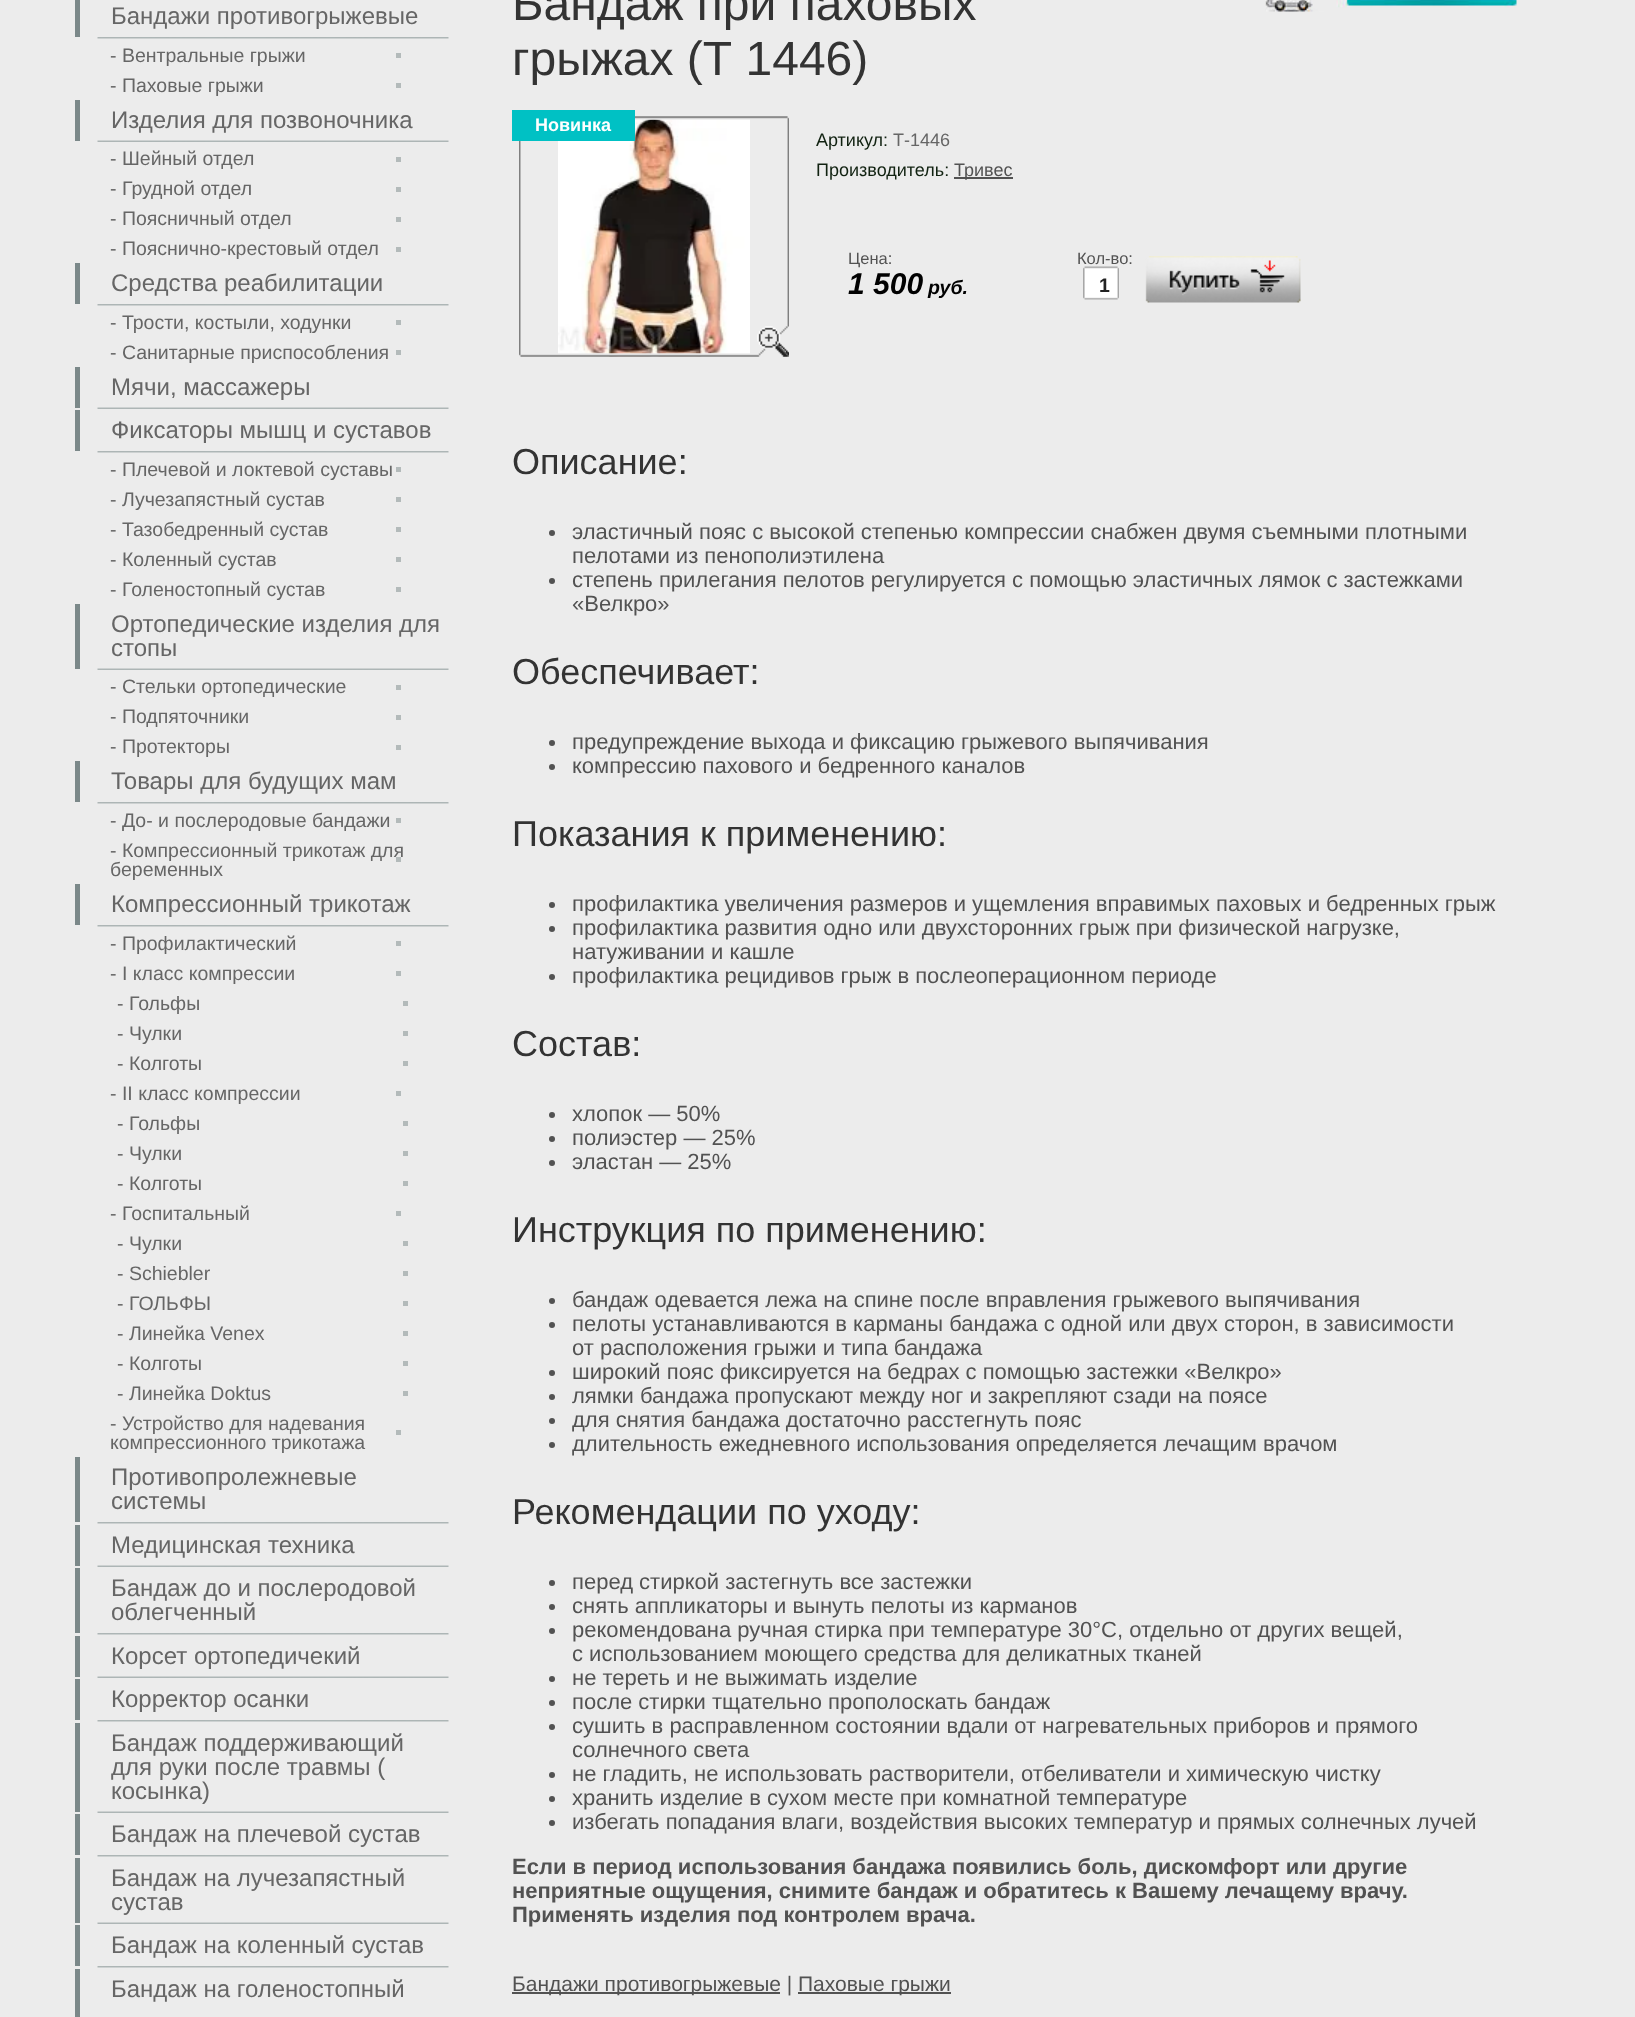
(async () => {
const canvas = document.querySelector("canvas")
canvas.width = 1635
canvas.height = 2017
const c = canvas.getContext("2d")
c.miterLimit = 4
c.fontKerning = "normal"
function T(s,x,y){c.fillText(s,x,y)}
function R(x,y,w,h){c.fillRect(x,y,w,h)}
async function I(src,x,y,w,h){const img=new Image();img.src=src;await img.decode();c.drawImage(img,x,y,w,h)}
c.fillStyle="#ececec"
R(0,0,1635,2017)
await I("1.png",97,37,352,2)
c.fillStyle="#7b8889"
R(75,0,5,37)
c.font="24px Liberation Sans"
c.fillStyle="#666"
T("Бандажи противогрыжевые",111,24)
c.fillStyle="#b3baba"
R(396,53,5,5)
c.font="19.5px Liberation Sans"
c.fillStyle="#666"
T("- Вентральные грыжи",110,62)
c.fillStyle="#b3baba"
R(396,83,5,5)
c.fillStyle="#666"
T("- Паховые грыжи",110,92)
await I("2.png",97,140,352,2)
c.fillStyle="#7b8889"
R(75,100,5,41)
c.font="24px Liberation Sans"
c.fillStyle="#666"
T("Изделия для позвоночника",111,128)
c.fillStyle="#b3baba"
R(396,157,5,5)
c.font="19.5px Liberation Sans"
c.fillStyle="#666"
T("- Шейный отдел",110,165)
c.fillStyle="#b3baba"
R(396,187,5,5)
c.fillStyle="#666"
T("- Грудной отдел",110,195)
c.fillStyle="#b3baba"
R(396,217,5,5)
c.fillStyle="#666"
T("- Поясничный отдел",110,225)
c.fillStyle="#b3baba"
R(396,247,5,5)
c.fillStyle="#666"
T("- Пояснично-крестовый отдел",110,255)
await I("1.png",97,304,352,2)
c.fillStyle="#7b8889"
R(75,263,5,41)
c.font="24px Liberation Sans"
c.fillStyle="#666"
T("Средства реабилитации",111,291)
c.fillStyle="#b3baba"
R(396,320,5,5)
c.font="19.5px Liberation Sans"
c.fillStyle="#666"
T("- Трости, костыли, ходунки",110,329)
c.fillStyle="#b3baba"
R(396,350,5,5)
c.fillStyle="#666"
T("- Санитарные приспособления",110,359)
await I("2.png",97,407,352,2)
c.fillStyle="#7b8889"
R(75,367,5,41)
c.font="24px Liberation Sans"
c.fillStyle="#666"
T("Мячи, массажеры",111,395)
await I("1.png",97,451,352,2)
c.fillStyle="#7b8889"
R(75,410,5,41)
c.fillStyle="#666"
T("Фиксаторы мышц и суставов",111,438)
c.fillStyle="#b3baba"
R(396,467,5,5)
c.font="19.5px Liberation Sans"
c.fillStyle="#666"
T("- Плечевой и локтевой суставы",110,476)
c.fillStyle="#b3baba"
R(396,497,5,5)
c.fillStyle="#666"
T("- Лучезапястный сустав",110,506)
c.fillStyle="#b3baba"
R(396,527,5,5)
c.fillStyle="#666"
T("- Тазобедренный сустав",110,536)
c.fillStyle="#b3baba"
R(396,557,5,5)
c.fillStyle="#666"
T("- Коленный сустав",110,566)
c.fillStyle="#b3baba"
R(396,587,5,5)
c.fillStyle="#666"
T("- Голеностопный сустав",110,596)
await I("2.png",97,668,352,2)
c.fillStyle="#7b8889"
R(75,604,5,65)
c.font="24px Liberation Sans"
c.fillStyle="#666"
T("Ортопедические изделия для",111,632)
T("стопы",111,656)
c.fillStyle="#b3baba"
R(396,685,5,5)
c.font="19.5px Liberation Sans"
c.fillStyle="#666"
T("- Стельки ортопедические",110,693)
c.fillStyle="#b3baba"
R(396,715,5,5)
c.fillStyle="#666"
T("- Подпяточники",110,723)
c.fillStyle="#b3baba"
R(396,745,5,5)
c.fillStyle="#666"
T("- Протекторы",110,753)
await I("1.png",97,802,352,2)
c.fillStyle="#7b8889"
R(75,761,5,41)
c.font="24px Liberation Sans"
c.fillStyle="#666"
T("Товары для будущих мам",111,789)
c.fillStyle="#b3baba"
R(396,818,5,5)
c.font="19.5px Liberation Sans"
c.fillStyle="#666"
T("- До- и послеродовые бандажи",110,827)
c.fillStyle="#b3baba"
R(396,857,5,5)
c.fillStyle="#666"
T("- Компрессионный трикотаж для",110,857)
T("беременных",110,876)
await I("1.png",97,925,352,2)
c.fillStyle="#7b8889"
R(75,884,5,41)
c.font="24px Liberation Sans"
c.fillStyle="#666"
T("Компрессионный трикотаж",111,912)
c.fillStyle="#b3baba"
R(396,941,5,5)
c.font="19.5px Liberation Sans"
c.fillStyle="#666"
T("- Профилактический",110,950)
c.fillStyle="#b3baba"
R(396,971,5,5)
c.fillStyle="#666"
T("- I класс компрессии",110,980)
c.fillStyle="#b3baba"
R(403,1001,5,5)
c.fillStyle="#666"
T("- Гольфы",117,1010)
c.fillStyle="#b3baba"
R(403,1031,5,5)
c.fillStyle="#666"
T("- Чулки",117,1040)
c.fillStyle="#b3baba"
R(403,1061,5,5)
c.fillStyle="#666"
T("- Колготы",117,1070)
c.fillStyle="#b3baba"
R(396,1091,5,5)
c.fillStyle="#666"
T("- II класс компрессии",110,1100)
c.fillStyle="#b3baba"
R(403,1121,5,5)
c.fillStyle="#666"
T("- Гольфы",117,1130)
c.fillStyle="#b3baba"
R(403,1151,5,5)
c.fillStyle="#666"
T("- Чулки",117,1160)
c.fillStyle="#b3baba"
R(403,1181,5,5)
c.fillStyle="#666"
T("- Колготы",117,1190)
c.fillStyle="#b3baba"
R(396,1211,5,5)
c.fillStyle="#666"
T("- Госпитальный",110,1220)
c.fillStyle="#b3baba"
R(403,1241,5,5)
c.fillStyle="#666"
T("- Чулки",117,1250)
c.fillStyle="#b3baba"
R(403,1271,5,5)
c.fillStyle="#666"
T("- Schiebler",117,1280)
c.fillStyle="#b3baba"
R(403,1301,5,5)
c.fillStyle="#666"
T("- ГОЛЬФЫ",117,1310)
c.fillStyle="#b3baba"
R(403,1331,5,5)
c.fillStyle="#666"
T("- Линейка Venex",117,1340)
c.fillStyle="#b3baba"
R(403,1361,5,5)
c.fillStyle="#666"
T("- Колготы",117,1370)
c.fillStyle="#b3baba"
R(403,1391,5,5)
c.fillStyle="#666"
T("- Линейка Doktus",117,1400)
c.fillStyle="#b3baba"
R(396,1430,5,5)
c.fillStyle="#666"
T("- Устройство для надевания",110,1430)
T("компрессионного трикотажа",110,1449)
await I("1.png",97,1522,352,2)
c.fillStyle="#7b8889"
R(75,1457,5,65)
c.font="24px Liberation Sans"
c.fillStyle="#666"
T("Противопролежневые",111,1485)
T("системы",111,1509)
await I("2.png",97,1565,352,2)
c.fillStyle="#7b8889"
R(75,1525,5,41)
c.fillStyle="#666"
T("Медицинская техника",111,1553)
await I("1.png",97,1633,352,2)
c.fillStyle="#7b8889"
R(75,1568,5,65)
c.fillStyle="#666"
T("Бандаж до и послеродовой",111,1596)
T("облегченный",111,1620)
await I("2.png",97,1676,352,2)
c.fillStyle="#7b8889"
R(75,1636,5,41)
c.fillStyle="#666"
T("Корсет ортопедичекий",111,1664)
await I("1.png",97,1720,352,2)
c.fillStyle="#7b8889"
R(75,1679,5,41)
c.fillStyle="#666"
T("Корректор осанки",111,1707)
await I("2.png",97,1811,352,2)
c.fillStyle="#7b8889"
R(75,1723,5,89)
c.fillStyle="#666"
T("Бандаж поддерживающий",111,1751)
T("для руки после травмы (",111,1775)
T("косынка)",111,1799)
await I("1.png",97,1855,352,2)
c.fillStyle="#7b8889"
R(75,1814,5,41)
c.fillStyle="#666"
T("Бандаж на плечевой сустав",111,1842)
await I("2.png",97,1922,352,2)
c.fillStyle="#7b8889"
R(75,1858,5,65)
c.fillStyle="#666"
T("Бандаж на лучезапястный",111,1886)
T("сустав",111,1910)
await I("1.png",97,1966,352,2)
c.fillStyle="#7b8889"
R(75,1925,5,41)
c.fillStyle="#666"
T("Бандаж на коленный сустав",111,1953)
c.fillStyle="#7b8889"
R(75,1969,5,48)
c.fillStyle="#666"
T("Бандаж на голеностопный",111,1997)
c.font="48px Liberation Sans"
c.fillStyle="#333"
T("Бандаж при паховых",512,20)
T("грыжах (Т 1446)",512,75)
await I("3.png",519,116,270,241)
await I("4.png",520,116,269,241)
c.fillStyle="#00c1c4"
R(512,110,123,31)
c.font="bold 18px Liberation Sans"
c.fillStyle="#fff"
T("Новинка",535,131)
c.font="18px Liberation Sans"
c.fillStyle="#121"
T("Артикул:",816,146)
c.fillStyle="#666"
T("Т-1446",893,146)
c.fillStyle="#121"
T("Производитель:",816,176)
c.fillStyle="#525252"
R(954,177,59,2)
T("Тривес",954,176)
c.font="16.5px Liberation Sans"
T("Цена:",848,264)
c.font="italic bold 30px Liberation Sans"
c.fillStyle="#010101"
T("1 500",848,294)
c.font="italic bold 19.5px Liberation Sans"
T("руб.",928,294)
c.font="16.5px Liberation Sans"
c.fillStyle="#525252"
T("Кол-во:",1077,264)
await I("5.png",1083,266,36,34)
c.font="bold 19.5px Liberation Sans"
c.fillStyle="#222"
T("1",1099,292)
await I("6.png",1145,256,156,47)
c.font="36px Liberation Sans"
c.fillStyle="#333"
T("Описание:",512,474)
c.fillStyle="#525252"
c.beginPath()
c.arc(552,533,3,0,7)
c.fill()
c.font="22px Liberation Sans"
T("эластичный пояс с высокой степенью компрессии снабжен двумя съемными плотными",572,539)
T("пелотами из пенополиэтилена",572,563)
c.beginPath()
c.arc(552,581,3,0,7)
c.fill()
T("степень прилегания пелотов регулируется с помощью эластичных лямок с застежками",572,587)
T("«Велкро»",572,611)
c.font="36px Liberation Sans"
c.fillStyle="#333"
T("Обеспечивает:",512,684)
c.fillStyle="#525252"
c.beginPath()
c.arc(552,743,3,0,7)
c.fill()
c.font="22px Liberation Sans"
T("предупреждение выхода и фиксацию грыжевого выпячивания",572,749)
c.beginPath()
c.arc(552,767,3,0,7)
c.fill()
T("компрессию пахового и бедренного каналов",572,773)
c.font="36px Liberation Sans"
c.fillStyle="#333"
T("Показания к применению:",512,846)
c.fillStyle="#525252"
c.beginPath()
c.arc(552,905,3,0,7)
c.fill()
c.font="22px Liberation Sans"
T("профилактика увеличения размеров и ущемления вправимых паховых и бедренных грыж",572,911)
c.beginPath()
c.arc(552,929,3,0,7)
c.fill()
T("профилактика развития одно или двухсторонних грыж при физической нагрузке,",572,935)
T("натуживании и кашле",572,959)
c.beginPath()
c.arc(552,977,3,0,7)
c.fill()
T("профилактика рецидивов грыж в послеоперационном периоде",572,983)
c.font="36px Liberation Sans"
c.fillStyle="#333"
T("Cостав:",512,1056)
c.fillStyle="#525252"
c.beginPath()
c.arc(552,1115,3,0,7)
c.fill()
c.font="22px Liberation Sans"
T("хлопок — 50%",572,1121)
c.beginPath()
c.arc(552,1139,3,0,7)
c.fill()
T("полиэстер — 25%",572,1145)
c.beginPath()
c.arc(552,1163,3,0,7)
c.fill()
T("эластан — 25%",572,1169)
c.font="36px Liberation Sans"
c.fillStyle="#333"
T("Инструкция по применению:",512,1242)
c.fillStyle="#525252"
c.beginPath()
c.arc(552,1301,3,0,7)
c.fill()
c.font="22px Liberation Sans"
T("бандаж одевается лежа на спине после вправления грыжевого выпячивания",572,1307)
c.beginPath()
c.arc(552,1325,3,0,7)
c.fill()
T("пелоты устанавливаются в карманы бандажа с одной или двух сторон, в зависимости",572,1331)
T("от расположения грыжи и типа бандажа",572,1355)
c.beginPath()
c.arc(552,1373,3,0,7)
c.fill()
T("широкий пояс фиксируется на бедрах с помощью застежки «Велкро»",572,1379)
c.beginPath()
c.arc(552,1397,3,0,7)
c.fill()
T("лямки бандажа пропускают между ног и закрепляют сзади на поясе",572,1403)
c.beginPath()
c.arc(552,1421,3,0,7)
c.fill()
T("для снятия бандажа достаточно расстегнуть пояс",572,1427)
c.beginPath()
c.arc(552,1445,3,0,7)
c.fill()
T("длительность ежедневного использования определяется лечащим врачом",572,1451)
c.font="36px Liberation Sans"
c.fillStyle="#333"
T("Рекомендации по уходу:",512,1524)
c.fillStyle="#525252"
c.beginPath()
c.arc(552,1583,3,0,7)
c.fill()
c.font="22px Liberation Sans"
T("перед стиркой застегнуть все застежки",572,1589)
c.beginPath()
c.arc(552,1607,3,0,7)
c.fill()
T("снять аппликаторы и вынуть пелоты из карманов",572,1613)
c.beginPath()
c.arc(552,1631,3,0,7)
c.fill()
T("рекомендована ручная стирка при температуре 30°С, отдельно от других вещей,",572,1637)
T("с использованием моющего средства для деликатных тканей",572,1661)
c.beginPath()
c.arc(552,1679,3,0,7)
c.fill()
T("не тереть и не выжимать изделие",572,1685)
c.beginPath()
c.arc(552,1703,3,0,7)
c.fill()
T("после стирки тщательно прополоскать бандаж",572,1709)
c.beginPath()
c.arc(552,1727,3,0,7)
c.fill()
T("сушить в расправленном состоянии вдали от нагревательных приборов и прямого",572,1733)
T("солнечного света",572,1757)
c.beginPath()
c.arc(552,1775,3,0,7)
c.fill()
T("не гладить, не использовать растворители, отбеливатели и химическую чистку",572,1781)
c.beginPath()
c.arc(552,1799,3,0,7)
c.fill()
T("хранить изделие в сухом месте при комнатной температуре",572,1805)
c.beginPath()
c.arc(552,1823,3,0,7)
c.fill()
T("избегать попадания влаги, воздействия высоких температур и прямых солнечных лучей",572,1829)
c.font="bold 22px Liberation Sans"
T("Если в период использования бандажа появились боль, дискомфорт или другие",512,1874)
T("неприятные ощущения, снимите бандаж и обратитесь к Вашему лечащему врачу.",512,1898)
T("Применять изделия под контролем врача.",512,1922)
R(512,1992,268,2)
c.font="21px Liberation Sans"
T("Бандажи противогрыжевые |",512,1991)
R(798,1992,153,2)
T("Паховые грыжи",798,1991)
await I("7.png",1265,0,252,12)
})()
